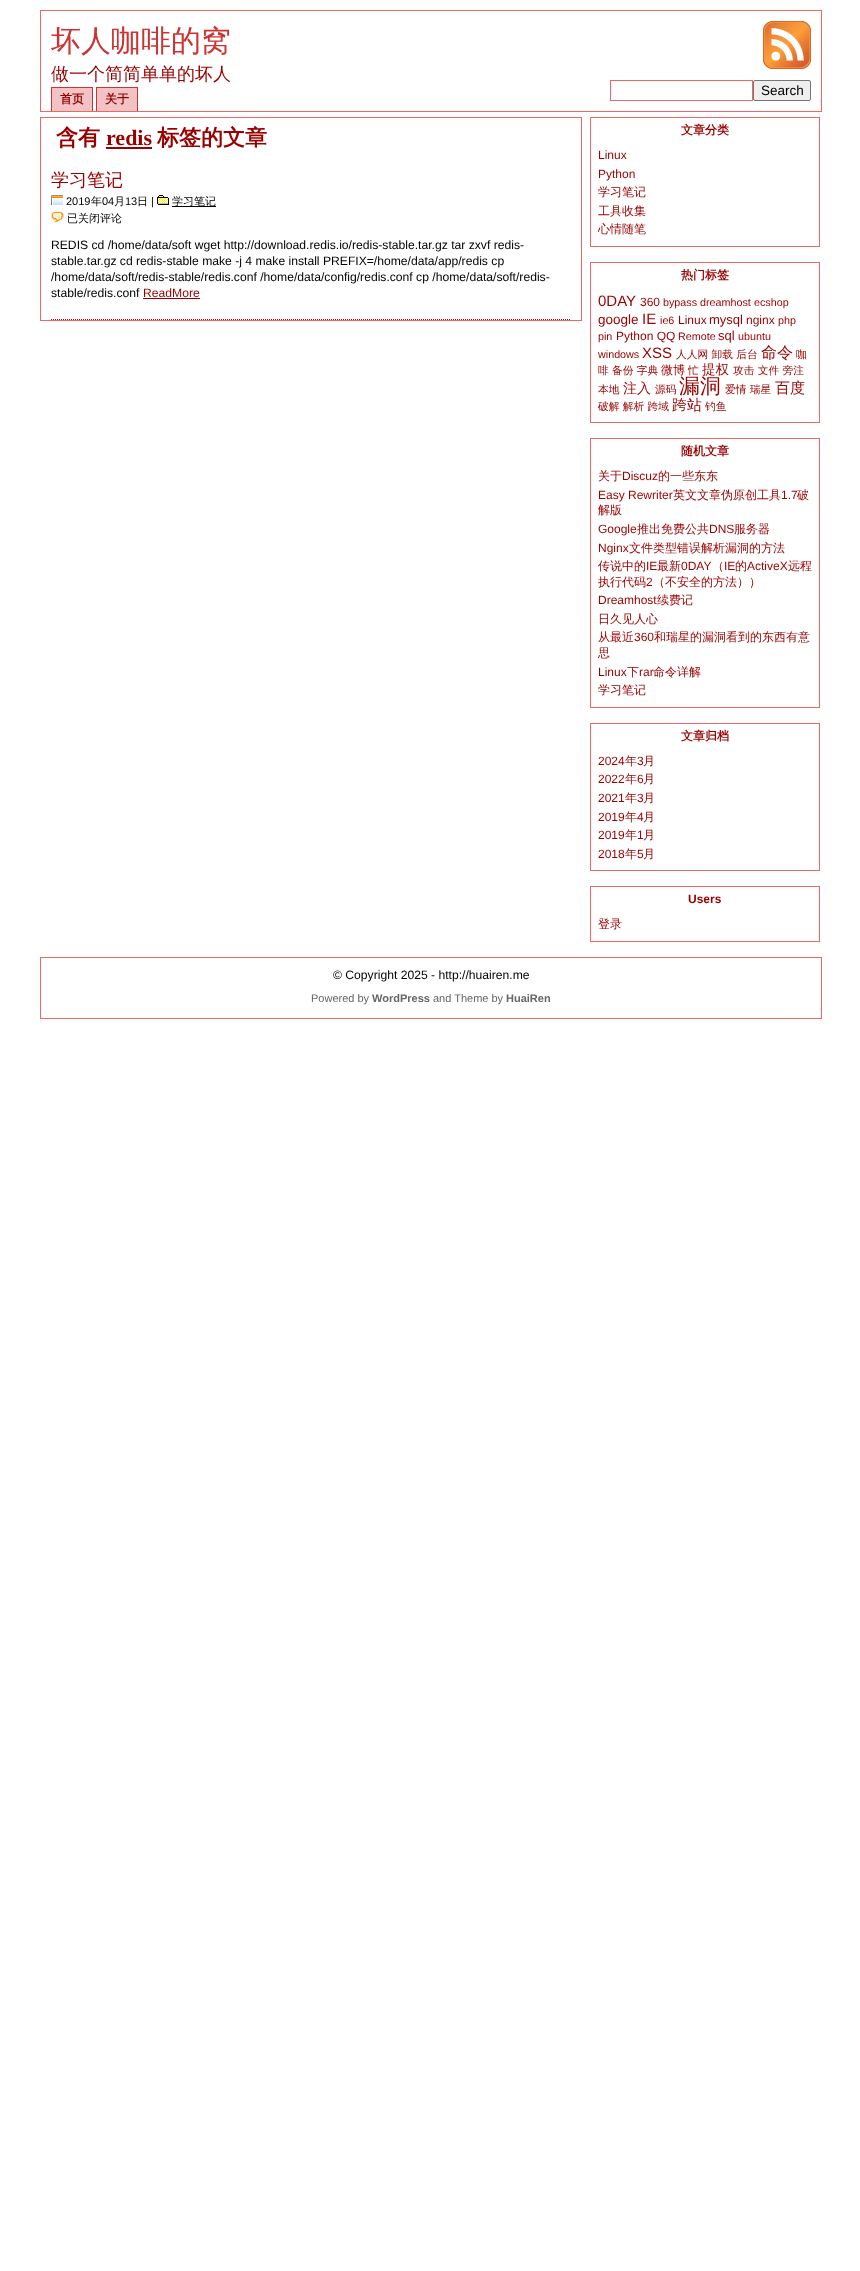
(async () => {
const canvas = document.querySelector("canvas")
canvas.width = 860
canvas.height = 2271
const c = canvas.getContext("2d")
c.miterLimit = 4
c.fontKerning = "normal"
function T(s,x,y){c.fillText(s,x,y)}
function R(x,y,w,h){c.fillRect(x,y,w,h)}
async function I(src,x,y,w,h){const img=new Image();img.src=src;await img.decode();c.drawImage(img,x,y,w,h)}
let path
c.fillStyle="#fff"
R(0,0,860,2271)
c.strokeStyle="#e66"
c.strokeRect(40.5,10.5,781,101)
c.font="500 30px WenQuanYi Zen Hei"
c.fillStyle="#c33"
T("坏人咖啡的窝",51,51)
c.font="500 18px WenQuanYi Zen Hei"
c.fillStyle="#900"
T("做一个简简单单的坏人",51,80)
await I("1.png",763,21,48,48)
c.strokeRect(610.5,80.5,142,20)
c.fillStyle="#efefef"
c.beginPath()
c.roundRect(753.5,80.5,57,20,1.5)
c.fill()
c.strokeStyle="#767676"
c.stroke()
c.font="13.5px Liberation Sans"
c.fillStyle="#000"
T("Search",761,95)
c.fillStyle="#f2c3c4"
R(52,88,40,23)
c.fillStyle="#c33"
R(51,87,42,1)
R(92,87,1,24)
R(51,87,1,24)
c.font="bold 12px WenQuanYi Zen Hei"
c.fillStyle="#900"
T("首页",60,103)
c.fillStyle="#f2c3c4"
R(97,88,40,23)
c.fillStyle="#c33"
R(96,87,42,1)
R(137,87,1,24)
R(96,87,1,24)
c.fillStyle="#900"
T("关于",105,103)
c.strokeStyle="#e66"
c.strokeRect(40.5,117.5,541,203)
c.font="bold 22px WenQuanYi Zen Hei"
T("含有",56,145)
c.font="bold 22px Liberation Serif"
T("redis",106,145)
R(106,147,46,2)
c.font="bold 22px WenQuanYi Zen Hei"
T("标签的文章",157,145)
path = new Path2D("M51 319.5h520")
c.strokeStyle="#c00"
c.setLineDash([1,1])
c.stroke(path)
c.font="500 18px WenQuanYi Zen Hei"
T("学习笔记",51,186)
await I("2.png",51,195,12,10)
c.font="11px Liberation Sans"
c.fillStyle="#000"
T("2019",66,205)
c.font="500 11px WenQuanYi Zen Hei"
T("年",91,205)
c.font="11px Liberation Sans"
T("04",102,205)
c.font="500 11px WenQuanYi Zen Hei"
T("月",114,205)
c.font="11px Liberation Sans"
T("13",125,205)
c.font="500 11px WenQuanYi Zen Hei"
T("日",137,205)
c.font="11px Liberation Sans"
T("|",151,205)
await I("3.png",157,195,12,10)
R(172,206,44,1)
c.font="500 11px WenQuanYi Zen Hei"
T("学习笔记",172,205)
await I("4.png",51,212,13,10)
T("已关闭评论",67,222)
c.font="12.15px Liberation Sans"
T("REDIS cd /home/data/soft wget http://download.redis.io/redis-stable.tar.gz tar zxvf redis-",51,249)
T("stable.tar.gz cd redis-stable make -j 4 make install PREFIX=/home/data/app/redis cp",51,265)
T("/home/data/soft/redis-stable/redis.conf /home/data/config/redis.conf cp /home/data/soft/redis-",51,281)
T("stable/redis.conf",51,297)
c.fillStyle="#900"
T("ReadMore",143,297)
R(143,298,57,1)
c.strokeStyle="#e66"
c.setLineDash([])
c.strokeRect(590.5,117.5,229,129)
c.font="bold 12px WenQuanYi Zen Hei"
T("文章分类",681,134)
c.font="12px Liberation Sans"
T("Linux",598,159)
T("Python",598,178)
c.font="500 12px WenQuanYi Zen Hei"
T("学习笔记",598,196)
T("工具收集",598,215)
T("心情随笔",598,233)
c.strokeRect(590.5,262.5,229,160)
c.font="bold 12px WenQuanYi Zen Hei"
T("热门标签",681,279)
c.font="15px Liberation Sans"
T("0DAY",598,306)
c.font="12px Liberation Sans"
T("360",640,306)
c.font="10.75px Liberation Sans"
T("bypass",663,306)
T("dreamhost",700,306)
T("ecshop",754,306)
c.font="13.5px Liberation Sans"
T("google",598,324)
c.font="15px Liberation Sans"
T("IE",642,324)
c.font="10.75px Liberation Sans"
T("ie6",660,324)
c.font="12px Liberation Sans"
T("Linux",678,324)
c.font="13px Liberation Sans"
T("mysql",709,324)
c.font="12px Liberation Sans"
T("nginx",746,324)
c.font="10.75px Liberation Sans"
T("php",778,324)
T("pin",598,340)
c.font="12px Liberation Sans"
T("Python QQ",616,340)
c.font="10.75px Liberation Sans"
T("Remote",678,340)
c.font="13px Liberation Sans"
T("sql",718,340)
c.font="10.75px Liberation Sans"
T("ubuntu",738,340)
T("windows",598,358)
c.font="15px Liberation Sans"
T("XSS",642,358)
c.font="500 10.75px WenQuanYi Zen Hei"
T("人人网 卸载 后台",676,358)
c.font="500 16px WenQuanYi Zen Hei"
T("命令",761,358)
c.font="500 10.75px WenQuanYi Zen Hei"
T("咖",796,358)
T("啡 备份 字典",598,374)
c.font="500 12px WenQuanYi Zen Hei"
T("微博",661,374)
c.font="500 10.75px WenQuanYi Zen Hei"
T("忙",688,374)
c.font="500 13.5px WenQuanYi Zen Hei"
T("提权",702,374)
c.font="500 10.75px WenQuanYi Zen Hei"
T("攻击 文件 旁注",733,374)
T("本地",598,393)
c.font="500 14px WenQuanYi Zen Hei"
T("注入",623,393)
c.font="500 10.75px WenQuanYi Zen Hei"
T("源码",655,393)
c.font="500 21px WenQuanYi Zen Hei"
T("漏洞",679,393)
c.font="500 10.75px WenQuanYi Zen Hei"
T("爱情 瑞星",725,393)
c.font="500 15px WenQuanYi Zen Hei"
T("百度",775,393)
c.font="500 10.75px WenQuanYi Zen Hei"
T("破解 解析 跨域",598,410)
c.font="500 15px WenQuanYi Zen Hei"
T("跨站",672,410)
c.font="500 10.75px WenQuanYi Zen Hei"
T("钓鱼",705,410)
c.strokeRect(590.5,438.5,229,269)
c.font="bold 12px WenQuanYi Zen Hei"
T("随机文章",681,455)
c.font="500 12px WenQuanYi Zen Hei"
T("关于",598,480)
c.font="12px Liberation Sans"
T("Discuz",622,480)
c.font="500 12px WenQuanYi Zen Hei"
T("的一些东东",658,480)
c.font="12px Liberation Sans"
T("Easy Rewriter",598,499)
c.font="500 12px WenQuanYi Zen Hei"
T("英文文章伪原创工具",673,499)
c.font="12px Liberation Sans"
T("1.7",781,499)
c.font="500 12px WenQuanYi Zen Hei"
T("破",797,499)
T("解版",598,514)
c.font="12px Liberation Sans"
T("Google",598,533)
c.font="500 12px WenQuanYi Zen Hei"
T("推出免费公共",637,533)
c.font="12px Liberation Sans"
T("DNS",709,533)
c.font="500 12px WenQuanYi Zen Hei"
T("服务器",734,533)
c.font="12px Liberation Sans"
T("Nginx",598,552)
c.font="500 12px WenQuanYi Zen Hei"
T("文件类型错误解析漏洞的方法",629,552)
T("传说中的",598,570)
c.font="12px Liberation Sans"
T("IE",646,570)
c.font="500 12px WenQuanYi Zen Hei"
T("最新",657,570)
c.font="12px Liberation Sans"
T("0DAY",681,570)
c.font="500 12px WenQuanYi Zen Hei"
T("（",712,570)
c.font="12px Liberation Sans"
T("IE",724,570)
c.font="500 12px WenQuanYi Zen Hei"
T("的",735,570)
c.font="12px Liberation Sans"
T("ActiveX",747,570)
c.font="500 12px WenQuanYi Zen Hei"
T("远程",788,570)
T("执行代码",598,586)
c.font="12px Liberation Sans"
T("2",646,586)
c.font="500 12px WenQuanYi Zen Hei"
T("（不安全的方法））",653,586)
c.font="12px Liberation Sans"
T("Dreamhost",598,604)
c.font="500 12px WenQuanYi Zen Hei"
T("续费记",657,604)
T("日久见人心",598,623)
T("从最近",598,641)
c.font="12px Liberation Sans"
T("360",634,641)
c.font="500 12px WenQuanYi Zen Hei"
T("和瑞星的漏洞看到的东西有意",654,641)
T("思",598,657)
c.font="12px Liberation Sans"
T("Linux",598,676)
c.font="500 12px WenQuanYi Zen Hei"
T("下",627,676)
c.font="12px Liberation Sans"
T("rar",639,676)
c.font="500 12px WenQuanYi Zen Hei"
T("命令详解",653,676)
T("学习笔记",598,694)
c.strokeRect(590.5,723.5,229,147)
c.font="bold 12px WenQuanYi Zen Hei"
T("文章归档",681,740)
c.font="12px Liberation Sans"
T("2024",598,765)
c.font="500 12px WenQuanYi Zen Hei"
T("年",625,765)
c.font="12px Liberation Sans"
T("3",637,765)
c.font="500 12px WenQuanYi Zen Hei"
T("月",643,765)
c.font="12px Liberation Sans"
T("2022",598,783)
c.font="500 12px WenQuanYi Zen Hei"
T("年",625,783)
c.font="12px Liberation Sans"
T("6",637,783)
c.font="500 12px WenQuanYi Zen Hei"
T("月",643,783)
c.font="12px Liberation Sans"
T("2021",598,802)
c.font="500 12px WenQuanYi Zen Hei"
T("年",625,802)
c.font="12px Liberation Sans"
T("3",637,802)
c.font="500 12px WenQuanYi Zen Hei"
T("月",643,802)
c.font="12px Liberation Sans"
T("2019",598,821)
c.font="500 12px WenQuanYi Zen Hei"
T("年",625,821)
c.font="12px Liberation Sans"
T("4",637,821)
c.font="500 12px WenQuanYi Zen Hei"
T("月",643,821)
c.font="12px Liberation Sans"
T("2019",598,839)
c.font="500 12px WenQuanYi Zen Hei"
T("年",625,839)
c.font="12px Liberation Sans"
T("1",637,839)
c.font="500 12px WenQuanYi Zen Hei"
T("月",643,839)
c.font="12px Liberation Sans"
T("2018",598,858)
c.font="500 12px WenQuanYi Zen Hei"
T("年",625,858)
c.font="12px Liberation Sans"
T("5",637,858)
c.font="500 12px WenQuanYi Zen Hei"
T("月",643,858)
c.strokeRect(590.5,886.5,229,55)
c.font="bold 12px Liberation Sans"
T("Users",688,903)
c.font="500 12px WenQuanYi Zen Hei"
T("登录",598,928)
c.strokeRect(40.5,957.5,781,61)
c.font="12.15px Liberation Sans"
c.fillStyle="#000"
T("© Copyright 2025 - http://huairen.me",333,979)
c.font="11px Liberation Sans"
c.fillStyle="#666"
T("Powered by",311,1002)
c.font="bold 11px Liberation Sans"
T("WordPress",372,1002)
c.font="11px Liberation Sans"
T("and Theme by",433,1002)
c.font="bold 11px Liberation Sans"
T("HuaiRen",506,1002)
})()
